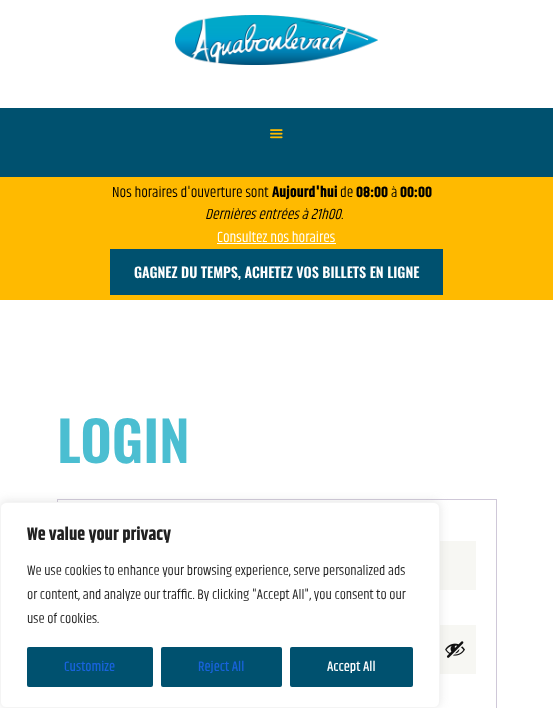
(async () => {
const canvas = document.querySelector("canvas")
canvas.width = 553
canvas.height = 708
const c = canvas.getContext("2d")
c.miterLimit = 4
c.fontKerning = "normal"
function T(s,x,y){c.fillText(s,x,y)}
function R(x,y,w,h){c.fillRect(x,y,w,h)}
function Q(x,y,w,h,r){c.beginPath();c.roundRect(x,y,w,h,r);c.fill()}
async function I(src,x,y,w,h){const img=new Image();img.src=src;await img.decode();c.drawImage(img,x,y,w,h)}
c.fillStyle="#fff"
R(0,0,553,708)
await I("1.png",175,15,203,50)
c.fillStyle="#00516f"
R(0,108,553,69)
await I("2.png",270,129,13,10)
c.fillStyle="#ffba00"
R(0,177,553,123)
c.font="15px Khand"
c.fillStyle="#000"
T("Nos horaires d'ouverture sont",112,197)
c.font="bold 15px Khand"
T("Aujourd'hui",272,197)
c.font="15px Khand"
T("de",340,197)
c.font="bold 15px Khand"
T("08:00",356,197)
c.font="15px Khand"
T("à",391,197)
c.font="bold 15px Khand"
T("00:00",400,197)
c.font="italic 15px Khand"
T("Dernières entrées à 21h00.",205,219)
c.font="15px Khand"
c.fillStyle="#fff"
T("Consultez nos horaires",217,242)
R(217,243,119,1)
c.fillStyle="#00516f"
R(110,249,333,46)
c.font="600 14.1px Oswald"
c.fillStyle="#fff"
T("GAGNEZ DU TEMPS, ACHETEZ VOS BILLETS EN LIGNE",134,278)
c.font="600 55px Oswald"
c.fillStyle="#4bbed1"
T("LOGIN",57,463)
c.strokeStyle="#cfc8d8"
c.strokeRect(57.5,499.5,439,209)
c.fillStyle="#f7f7f3"
R(440,541,36,49)
R(440,625,36,49)
await I("3.png",445,641,20,17)
c.fillStyle="#acabab4d"
c.filter="blur(5px)"
c.beginPath()
c.roundRect(0,501,440,206,6)
c.fill()
c.filter="none"
c.fillStyle="#fff"
c.beginPath()
c.roundRect(.5,502.5,439,205,5.5)
c.fill()
c.strokeStyle="#f4f4f4"
c.stroke()
c.font="bold 18px Khand"
c.fillStyle="#212121"
T("We value your privacy",27,540)
c.font="14px Khand"
T("We use cookies to enhance your browsing experience, serve personalized ads",27,575)
T("or content, and analyze our traffic. By clicking \"Accept All\", you consent to our",27,599)
T("use of cookies.",27,623)
c.fillStyle="#00516f"
Q(27,647,126,40,2)
c.font="500 14px Khand"
c.fillStyle="#1863dc"
T("Customize",64,671)
c.fillStyle="#00516f"
Q(161,647,121,40,2)
c.fillStyle="#1863dc"
T("Reject All",198,671)
c.fillStyle="#00516f"
Q(290,647,123,40,2)
c.fillStyle="#fff"
T("Accept All",327,671)
})()
